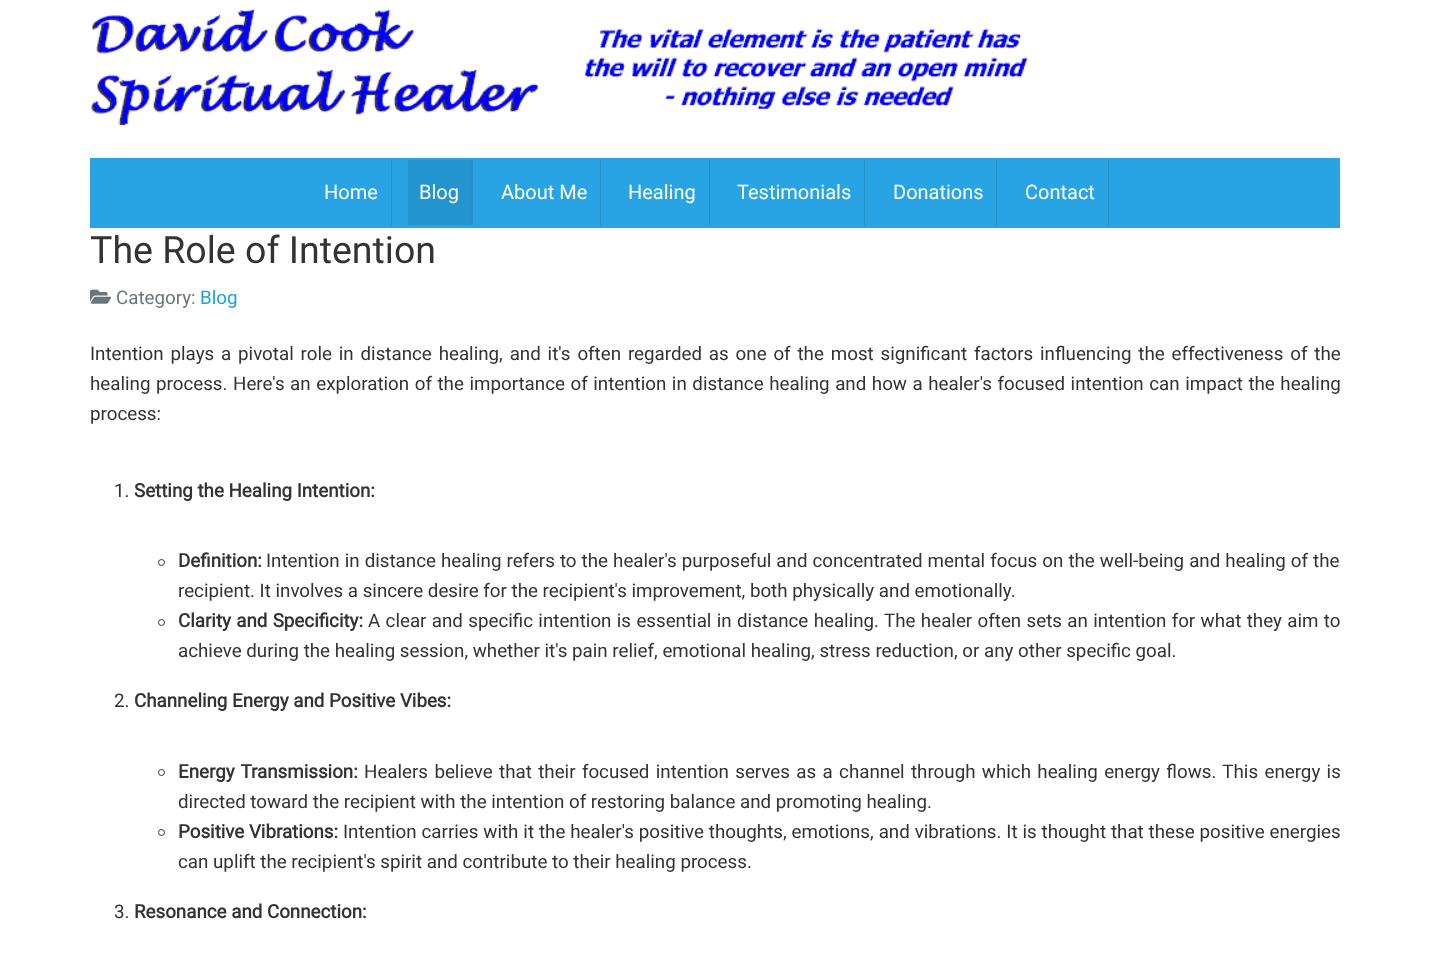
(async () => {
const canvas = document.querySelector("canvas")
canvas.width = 1429
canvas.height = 977
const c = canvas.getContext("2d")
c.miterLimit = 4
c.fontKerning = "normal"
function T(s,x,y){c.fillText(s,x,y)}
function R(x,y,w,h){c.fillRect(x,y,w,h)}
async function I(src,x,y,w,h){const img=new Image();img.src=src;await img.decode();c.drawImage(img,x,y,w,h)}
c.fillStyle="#fff"
R(0,0,1429,977)
await I("1.png",91,8,937,118)
c.fillStyle="#28a4e5"
R(90,158,1250,70)
c.fillStyle="#2390c9"
R(391,160,1,65)
c.font="20px Roboto"
c.fillStyle="#fff"
T("Home",324,199)
c.fillStyle="#2494ce"
R(408,160,65,65)
c.fillStyle="#2390c9"
R(471,160,1,65)
c.fillStyle="#fff"
T("Blog",419,199)
c.fillStyle="#2390c9"
R(600,160,1,65)
c.fillStyle="#fff"
T("About Me",501,199)
c.fillStyle="#2390c9"
R(709,160,1,65)
c.fillStyle="#fff"
T("Healing",628,199)
c.fillStyle="#2390c9"
R(864,160,1,65)
c.fillStyle="#fff"
T("Testimonials",737,199)
c.fillStyle="#2390c9"
R(996,160,1,65)
c.fillStyle="#fff"
T("Donations",893,199)
c.fillStyle="#2390c9"
R(1108,160,1,65)
c.fillStyle="#fff"
T("Contact",1025,199)
c.font="37.5px Roboto"
c.fillStyle="#333"
T("The Role of Intention",90,263)
await I("2.png",90,289,22,15)
c.font="18.75px Roboto"
c.fillStyle="#6c757d"
T("Category:",116,304)
c.fillStyle="#1aa0e1"
T("Blog",200,304)
c.wordSpacing="2.2px"
c.fillStyle="#333"
T("Intention plays a pivotal role in distance healing, and it's often regarded as one of the most significant factors influencing the effectiveness of the",90,360)
c.wordSpacing="0.9px"
T("healing process. Here's an exploration of the importance of intention in distance healing and how a healer's focused intention can impact the healing",90,390)
c.wordSpacing="0px"
T("process:",90,420)
T("1.",114,497)
c.font="bold 18.75px Roboto"
T("Setting the Healing Intention:",134,497)
c.beginPath()
c.arc(161.5,562.5,3,0,7)
c.strokeStyle="#333"
c.stroke()
T("Definition:",178,567)
c.wordSpacing="0.4px"
c.font="18.75px Roboto"
T("Intention in distance healing refers to the healer's purposeful and concentrated mental focus on the well-being and healing of the",266,567)
c.wordSpacing="0px"
T("recipient. It involves a sincere desire for the recipient's improvement, both physically and emotionally.",178,597)
c.beginPath()
c.arc(161.5,622.5,3,0,7)
c.stroke()
c.wordSpacing="0.7px"
c.font="bold 18.75px Roboto"
T("Clarity and Specificity:",178,627)
c.font="18.75px Roboto"
T("A clear and specific intention is essential in distance healing. The healer often sets an intention for what they aim to",368,627)
c.wordSpacing="0px"
T("achieve during the healing session, whether it's pain relief, emotional healing, stress reduction, or any other specific goal.",178,657)
T("2.",114,707)
c.font="bold 18.75px Roboto"
T("Channeling Energy and Positive Vibes:",134,707)
c.beginPath()
c.arc(161.5,772.5,3,0,7)
c.stroke()
c.wordSpacing="1.7px"
T("Energy Transmission:",178,778)
c.font="18.75px Roboto"
T("Healers believe that their focused intention serves as a channel through which healing energy flows. This energy is",364,778)
c.wordSpacing="0px"
T("directed toward the recipient with the intention of restoring balance and promoting healing.",178,808)
c.beginPath()
c.arc(161.5,832.5,3,0,7)
c.stroke()
c.font="bold 18.75px Roboto"
T("Positive Vibrations:",178,838)
c.wordSpacing="0.25px"
c.font="18.75px Roboto"
T("Intention carries with it the healer's positive thoughts, emotions, and vibrations. It is thought that these positive energies",343,838)
c.wordSpacing="0px"
T("can uplift the recipient's spirit and contribute to their healing process.",178,868)
T("3.",114,918)
c.font="bold 18.75px Roboto"
T("Resonance and Connection:",134,918)
})()
